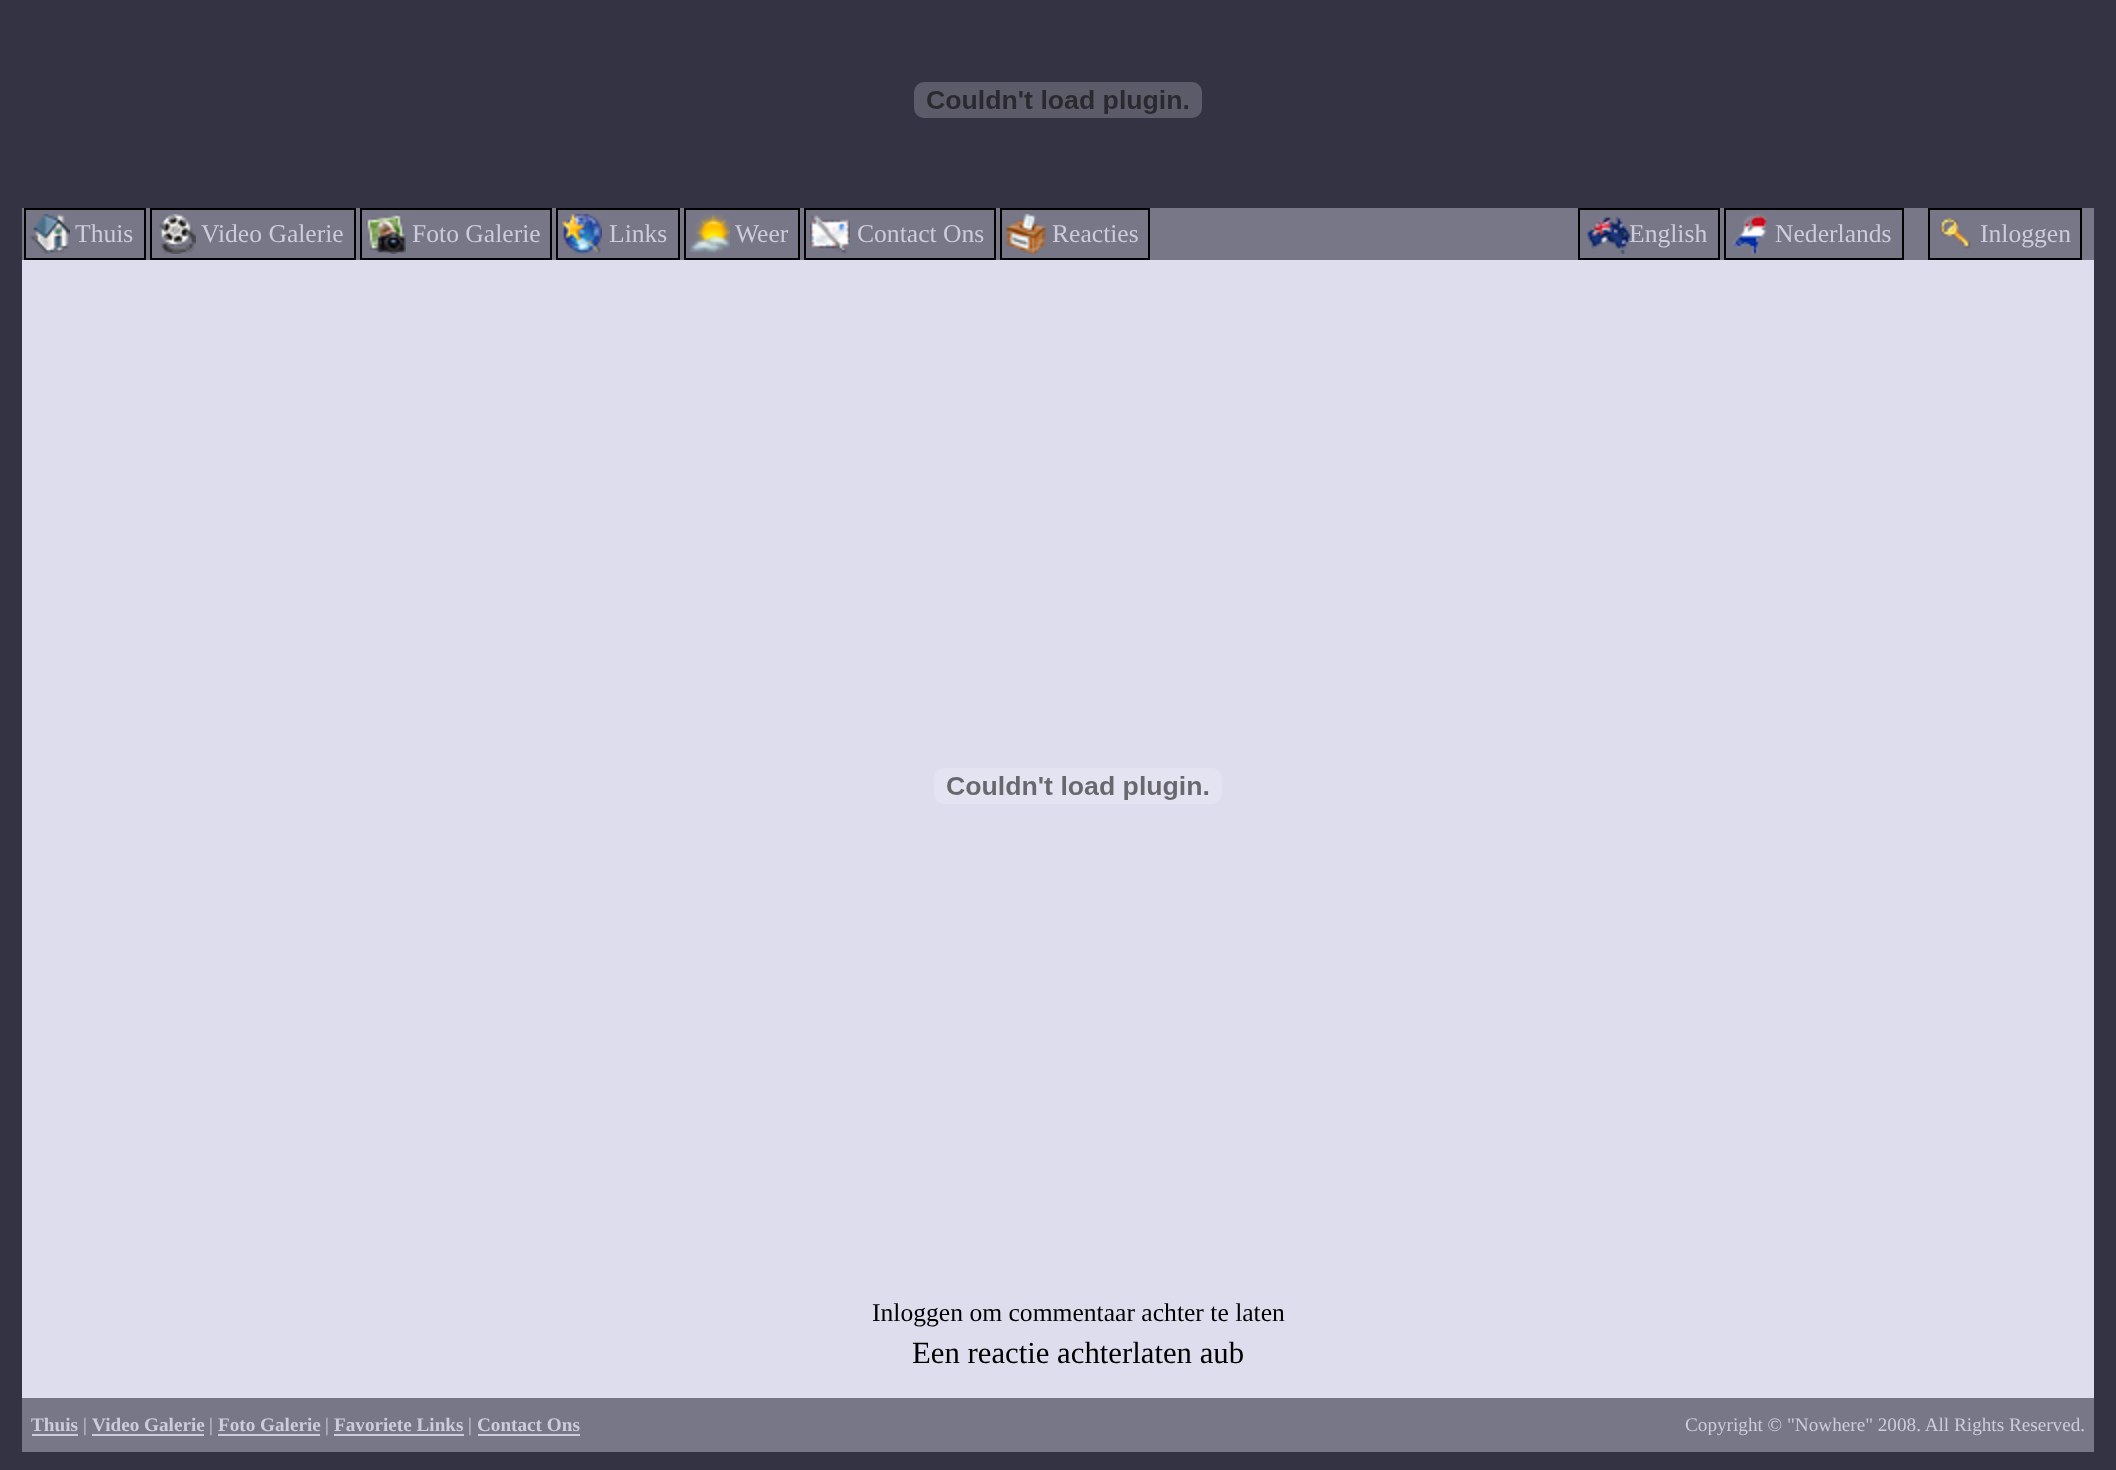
(async () => {
const canvas = document.querySelector("canvas")
canvas.width = 2116
canvas.height = 1470
const c = canvas.getContext("2d")
c.miterLimit = 4
c.fontKerning = "normal"
function T(s,x,y){c.fillText(s,x,y)}
function R(x,y,w,h){c.fillRect(x,y,w,h)}
async function I(src,x,y,w,h){const img=new Image();img.src=src;await img.decode();c.drawImage(img,x,y,w,h)}
c.fillStyle="#334"
R(0,0,2116,1470)
await I("1.png",914,82,288,36)
c.fillStyle="#dde"
R(22,260,2072,1138)
c.fillStyle="#778"
R(22,208,2072,52)
await I("2.png",30,214,40,40)
c.strokeStyle="#000"
c.lineWidth=2
c.strokeRect(25,209,120,50)
c.font="25.6px Liberation Serif"
c.fillStyle="#ccd"
T("Thuis",75,242)
await I("3.png",159,214,37,40)
c.strokeRect(151,209,204,50)
T("Video Galerie",201,242)
await I("4.png",366,214,40,40)
c.strokeRect(361,209,190,50)
T("Foto Galerie",412,242)
await I("5.png",562,214,40,40)
c.strokeRect(557,209,122,50)
T("Links",609,242)
await I("6.png",690,214,40,39)
c.strokeRect(685,209,114,50)
T("Weer",735,242)
await I("7.png",810,215,40,39)
c.strokeRect(805,209,190,50)
T("Contact Ons",857,242)
await I("8.png",1006,214,40,40)
c.strokeRect(1001,209,148,50)
T("Reacties",1052,242)
await I("9.png",1586,216,45,38)
c.strokeRect(1579,209,140,50)
T("English",1629,242)
await I("10.png",1731,214,36,40)
c.strokeRect(1725,209,178,50)
T("Nederlands",1775,242)
await I("11.png",1939,217,32,32)
c.strokeRect(1929,209,152,50)
T("Inloggen",1980,242)
await I("12.png",934,768,288,36)
c.fillStyle="#000"
T("Inloggen om commentaar achter te laten",872,1321)
c.font="30.75px Liberation Serif"
T("Een reactie achterlaten aub",912,1363)
c.fillStyle="#778"
R(22,1398,2072,54)
c.font="bold 19.2px Liberation Serif"
c.fillStyle="#ccd"
T("Thuis",31,1431)
R(32,1434,46,2)
c.font="19.2px Liberation Serif"
T("|",83,1431)
c.font="bold 19.2px Liberation Serif"
T("Video Galerie",92,1431)
R(92,1434,112,2)
c.font="19.2px Liberation Serif"
T("|",209,1431)
c.font="bold 19.2px Liberation Serif"
T("Foto Galerie",218,1431)
R(218,1434,102,2)
c.font="19.2px Liberation Serif"
T("|",325,1431)
c.font="bold 19.2px Liberation Serif"
T("Favoriete Links",334,1431)
R(334,1434,130,2)
c.font="19.2px Liberation Serif"
T("|",468,1431)
c.font="bold 19.2px Liberation Serif"
T("Contact Ons",477,1431)
R(478,1434,102,2)
c.font="19.2px Liberation Serif"
T("Copyright © \"Nowhere\" 2008. All Rights Reserved.",1685,1431)
})()
